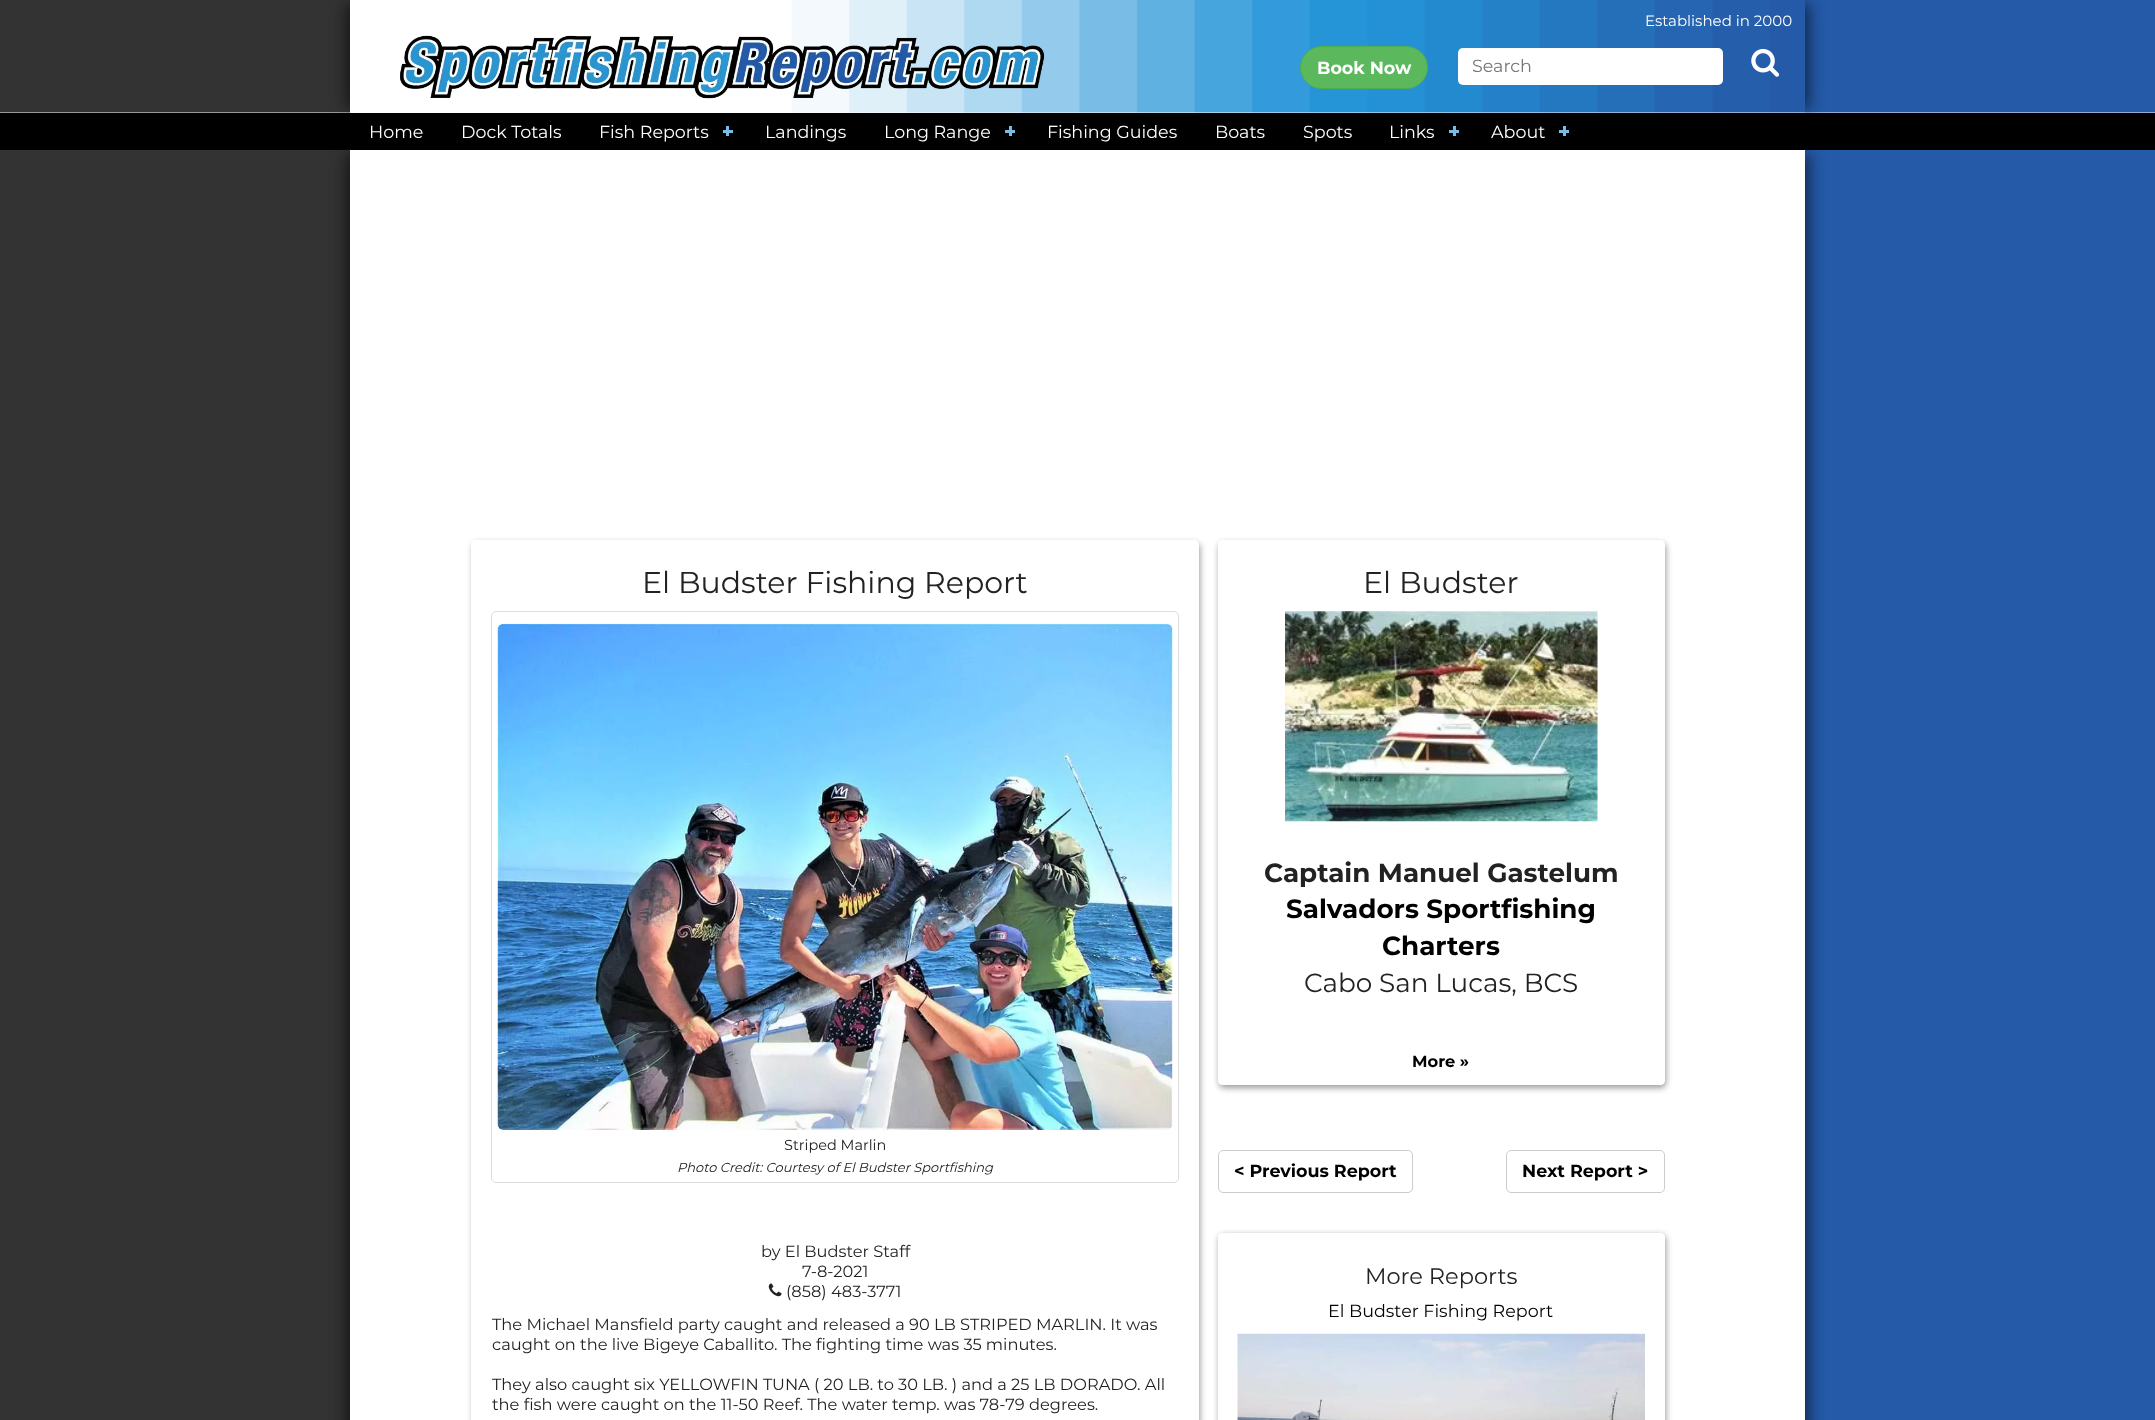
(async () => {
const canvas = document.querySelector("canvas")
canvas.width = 2155
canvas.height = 1420
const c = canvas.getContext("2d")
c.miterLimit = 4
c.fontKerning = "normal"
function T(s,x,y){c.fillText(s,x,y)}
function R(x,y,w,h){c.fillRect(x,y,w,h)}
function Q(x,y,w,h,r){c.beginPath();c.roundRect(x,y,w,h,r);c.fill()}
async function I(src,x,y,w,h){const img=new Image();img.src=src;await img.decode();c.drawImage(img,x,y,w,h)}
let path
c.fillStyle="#fff"
R(0,0,2155,1420)
await I("1.png",0,0,2155,113)
c.fillStyle="#00000080"
c.filter="blur(7.5px)"
c.beginPath()
c.rect(345,4,1448,105)
c.fill()
c.filter="none"
c.filter="blur(7.5px)"
c.beginPath()
c.rect(363,4,1447,105)
c.fill()
c.filter="none"
c.fillStyle="#fff"
R(350,0,1455,113)
await I("2.png",791,0,1014,113)
await I("3.png",400,35,645,64)
c.font="15px Montserrat"
T("Established in 2000",1645,26)
c.fillStyle="#5cb85c"
c.beginPath()
c.roundRect(1300.5,46.5,127,42,21)
c.fill()
c.strokeStyle="#4cae4c"
c.stroke()
c.font="bold 17.5px Montserrat"
c.fillStyle="#fff"
T("Book Now",1317,74)
Q(1458,48,265,37,5)
c.font="17.5px Montserrat"
c.fillStyle="#757575"
T("Search",1472,72)
await I("4.png",1751,48,29,29)
c.fillStyle="#000"
R(0,113,2155,37)
c.fillStyle="#333"
R(0,150,350,1270)
c.fillStyle="#255aa8"
R(1805,150,350,1270)
c.fillStyle="#00000080"
c.filter="blur(7.5px)"
c.beginPath()
c.rect(345,154,1448,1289)
c.fill()
c.filter="none"
c.filter="blur(7.5px)"
c.beginPath()
c.rect(363,154,1447,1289)
c.fill()
c.filter="none"
c.fillStyle="#fff"
T("Home",369,138)
T("Dock Totals",461,138)
T("Fish Reports",599,138)
c.fillStyle="#79bde7"
R(726,126,3,10)
R(723,130,10,3)
c.fillStyle="#fff"
T("Landings",765,138)
T("Long Range",884,138)
c.fillStyle="#79bde7"
R(1009,126,3,10)
R(1005,130,10,3)
c.fillStyle="#fff"
T("Fishing Guides",1047,138)
T("Boats",1215,138)
T("Spots",1303,138)
T("Links",1389,138)
c.fillStyle="#79bde7"
R(1453,126,3,10)
R(1449,130,10,3)
c.fillStyle="#fff"
T("About",1491,138)
c.fillStyle="#79bde7"
R(1563,126,3,10)
R(1559,130,10,3)
c.fillStyle="#fff"
R(350,150,1455,1270)
c.save()
path = new Path2D("M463 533h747v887h-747zm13 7h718c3 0 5 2 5 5v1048c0 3-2 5-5 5h-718c-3 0-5-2-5-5v-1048c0-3 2-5 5-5z")
c.clip(path,"evenodd")
c.fillStyle="#06060666"
c.filter="blur(3px)"
c.beginPath()
c.roundRect(473,543,727,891,5)
c.fill()
c.filter="none"
c.restore()
c.fillStyle="#ffffffb3"
Q(471,540,728,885,5)
c.font="30px Montserrat"
c.fillStyle="#222"
T("El Budster Fishing Report",642,593)
c.beginPath()
c.roundRect(491.5,611.5,687,571,4.5)
c.strokeStyle="#ddd"
c.stroke()
await I("5.png",497,623,676,507)
c.font="14.5px Montserrat"
T("Striped Marlin",784,1150)
c.font="italic 13px Montserrat"
T("Photo Credit: Courtesy of El Budster Sportfishing",677,1172)
c.font="16.25px Montserrat"
T("by El Budster Staff",761,1257)
T("7-8-2021",802,1277)
await I("6.png",768,1283,14,14)
T("(858) 483-3771",786,1297)
T("The Michael Mansfield party caught and released a 90 LB STRIPED MARLIN. It was",492,1330)
T("caught on the live Bigeye Caballito. The fighting time was 35 minutes.",492,1350)
T("They also caught six YELLOWFIN TUNA ( 20 LB. to 30 LB. ) and a 25 LB DORADO. All",492,1390)
T("the fish were caught on the 11-50 Reef. The water temp. was 78-79 degrees.",492,1410)
c.save()
path = new Path2D("M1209 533h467v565h-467zm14 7h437c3 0 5 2 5 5v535c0 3-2 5-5 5h-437c-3 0-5-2-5-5v-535c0-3 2-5 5-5z")
c.clip(path,"evenodd")
c.fillStyle="#06060666"
c.filter="blur(3px)"
c.beginPath()
c.roundRect(1219,543,447,545,5)
c.fill()
c.filter="none"
c.restore()
c.fillStyle="#ffffffb3"
Q(1218,540,447,545,5)
c.font="30px Montserrat"
c.fillStyle="#222"
T("El Budster",1363,593)
await I("7.png",1285,611,313,211)
c.font="bold 26.25px Montserrat"
T("Captain Manuel Gastelum",1264,882)
c.fillStyle="#000"
T("Salvadors Sportfishing",1286,918)
T("Charters",1382,955)
c.font="26.25px Montserrat"
c.fillStyle="#222"
T("Cabo San Lucas, BCS",1304,992)
c.font="bold 16.25px Montserrat"
c.fillStyle="#000"
T("More »",1412,1067)
c.beginPath()
c.roundRect(1218.5,1150.5,194,42,4.5)
c.strokeStyle="#ccc"
c.stroke()
c.font="bold 17.5px Montserrat"
T("< Previous Report",1234,1177)
c.beginPath()
c.roundRect(1506.5,1150.5,158,42,4.5)
c.stroke()
T("Next Report >",1522,1177)
c.save()
path = new Path2D("M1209 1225h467v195h-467zm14 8h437c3 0 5 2 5 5v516c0 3-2 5-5 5h-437c-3 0-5-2-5-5v-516c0-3 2-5 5-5z")
c.clip(path,"evenodd")
c.fillStyle="#06060666"
c.filter="blur(3px)"
c.beginPath()
c.roundRect(1219,1235,447,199,5)
c.fill()
c.filter="none"
c.restore()
c.fillStyle="#ffffffb3"
Q(1218,1233,447,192,5)
c.font="22.5px Montserrat"
c.fillStyle="#222"
T("More Reports",1365,1284)
c.font="17.5px Montserrat"
c.fillStyle="#000"
T("El Budster Fishing Report",1328,1317)
await I("8.png",1237,1333,408,87)
})()
